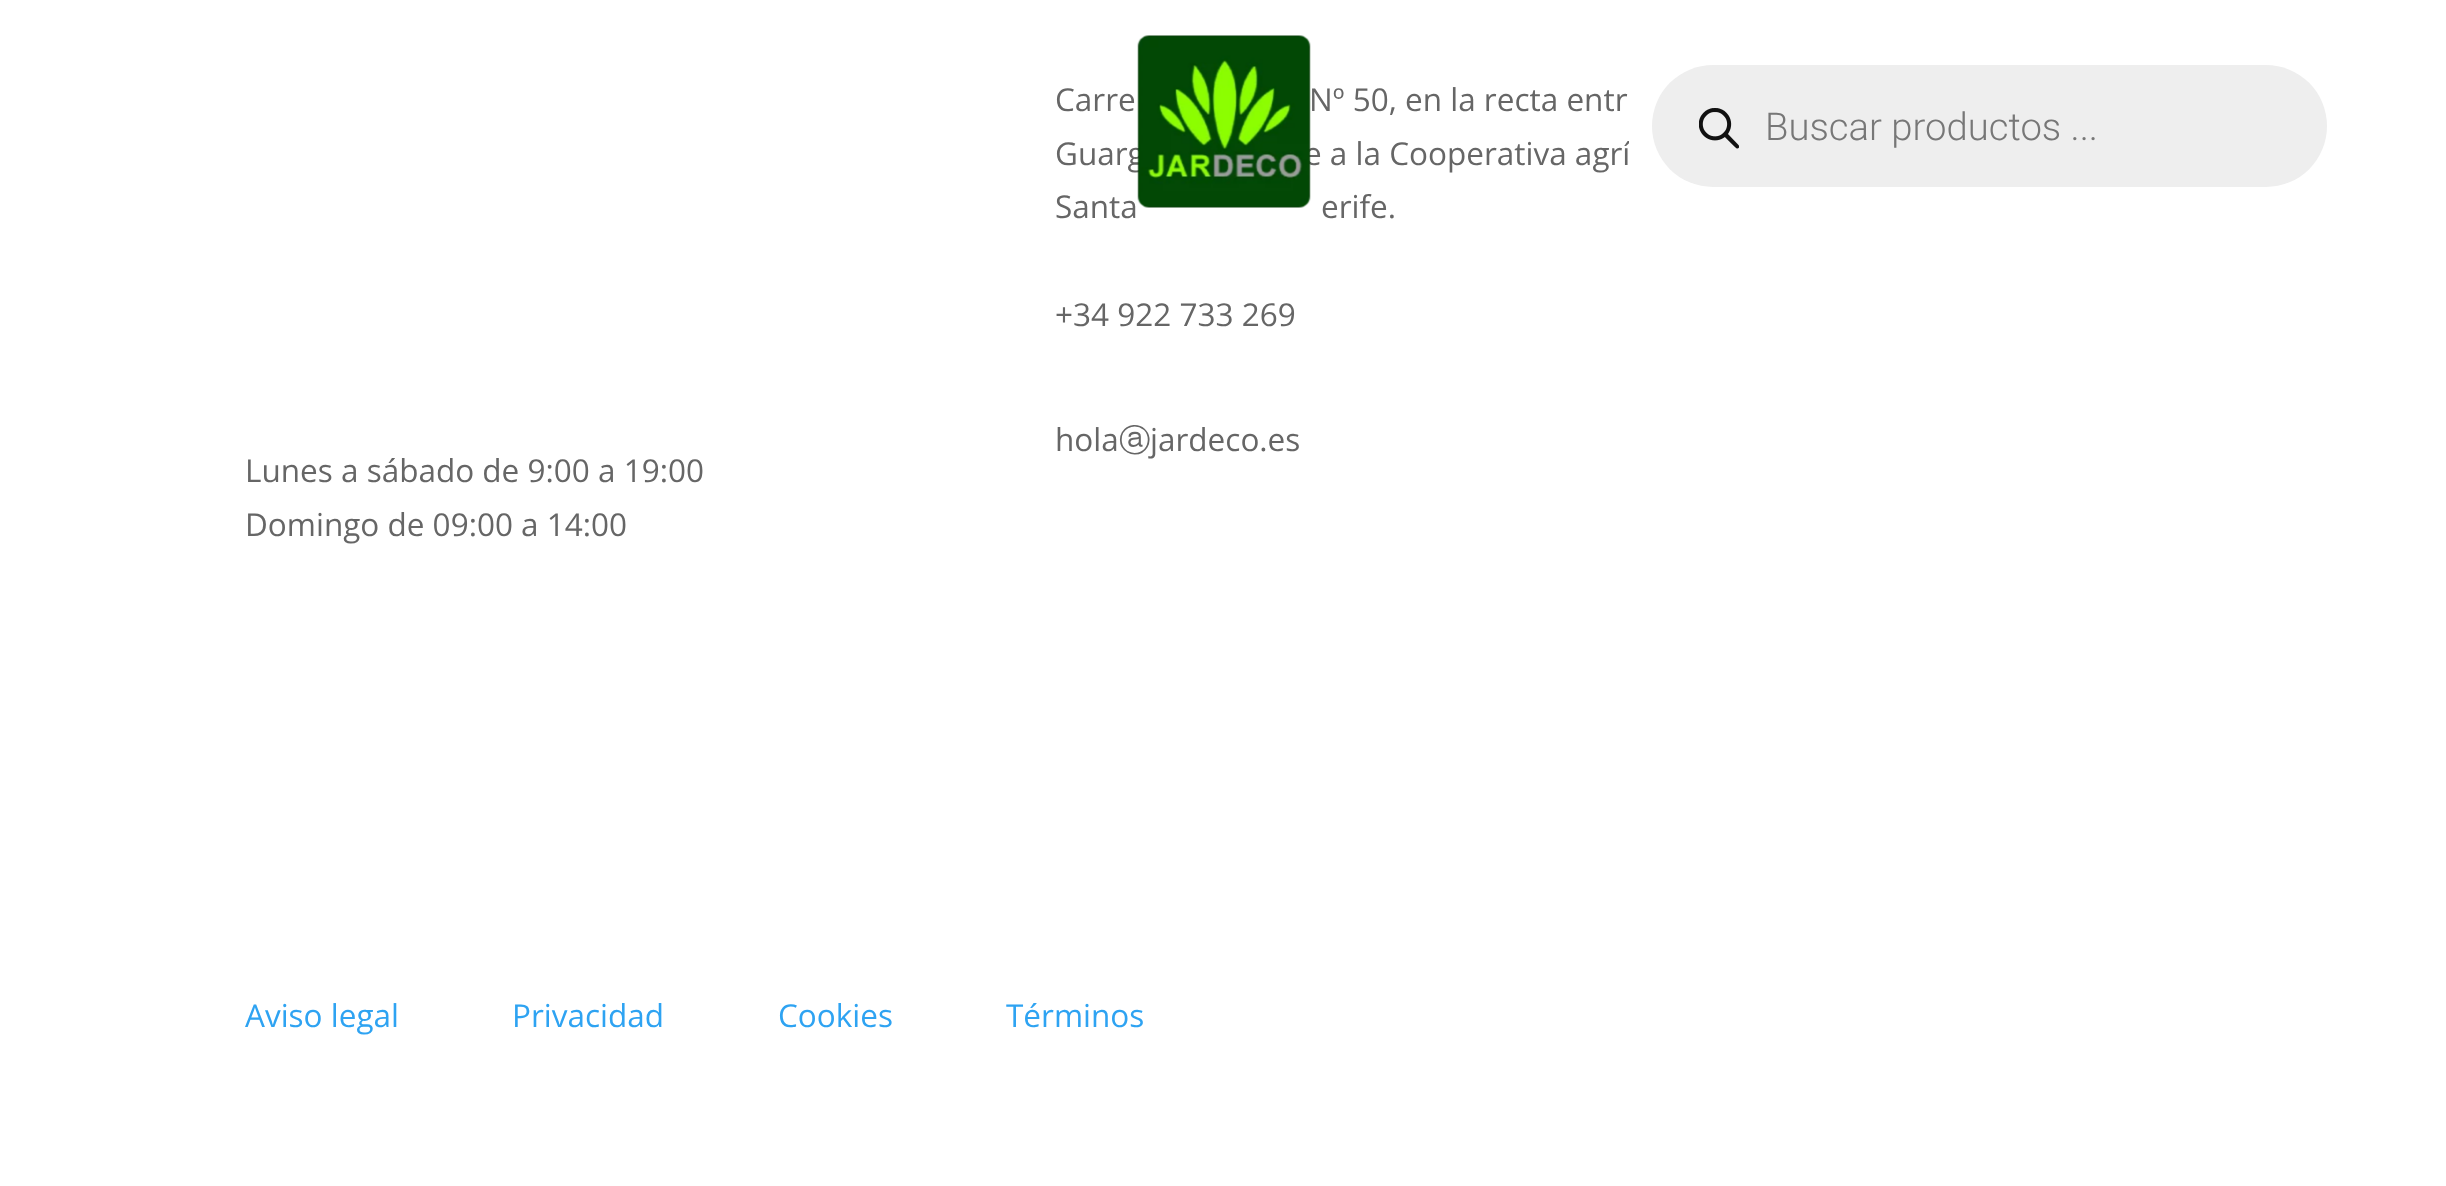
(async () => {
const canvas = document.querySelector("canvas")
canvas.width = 2446
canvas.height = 1186
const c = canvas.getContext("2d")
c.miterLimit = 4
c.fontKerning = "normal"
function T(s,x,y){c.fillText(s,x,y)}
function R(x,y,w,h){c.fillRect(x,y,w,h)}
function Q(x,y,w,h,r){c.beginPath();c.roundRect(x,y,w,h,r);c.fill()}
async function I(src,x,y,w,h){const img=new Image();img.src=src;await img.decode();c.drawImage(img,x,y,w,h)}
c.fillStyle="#fff"
R(0,0,2446,1186)
c.font="31.5px Open Sans"
c.fillStyle="#666"
T("Carre",1055,111)
T("Nº 50, en la recta entr",1309,111)
T("Guarg",1055,165)
T("e a la Cooperativa agrí",1304,165)
T("Santa",1055,218)
T("erife.",1321,218)
T("+34 922 733 269",1055,326)
T("hola",1055,451)
c.font="500 31.5px WenQuanYi Zen Hei"
T("ⓐ",1119,451)
c.font="31.5px Open Sans"
T("jardeco.es",1150,451)
T("Lunes a sábado de 9:00 a 19:00",245,482)
T("Domingo de 09:00 a 14:00",245,536)
c.fillStyle="#2ea3f2"
T("Aviso legal",245,1027)
T("Privacidad",512,1027)
T("Cookies",778,1027)
T("Términos",1006,1027)
await I("1.png",1137,35,174,173)
c.fillStyle="#fff"
Q(1629,43,720,166,23)
c.fillStyle="#eee"
Q(1652,65,675,122,61)
await I("2.png",1699,108,40,41)
c.font="300 38.25px Roboto"
c.fillStyle="#777"
T("Buscar productos ...",1765,140)
})()
